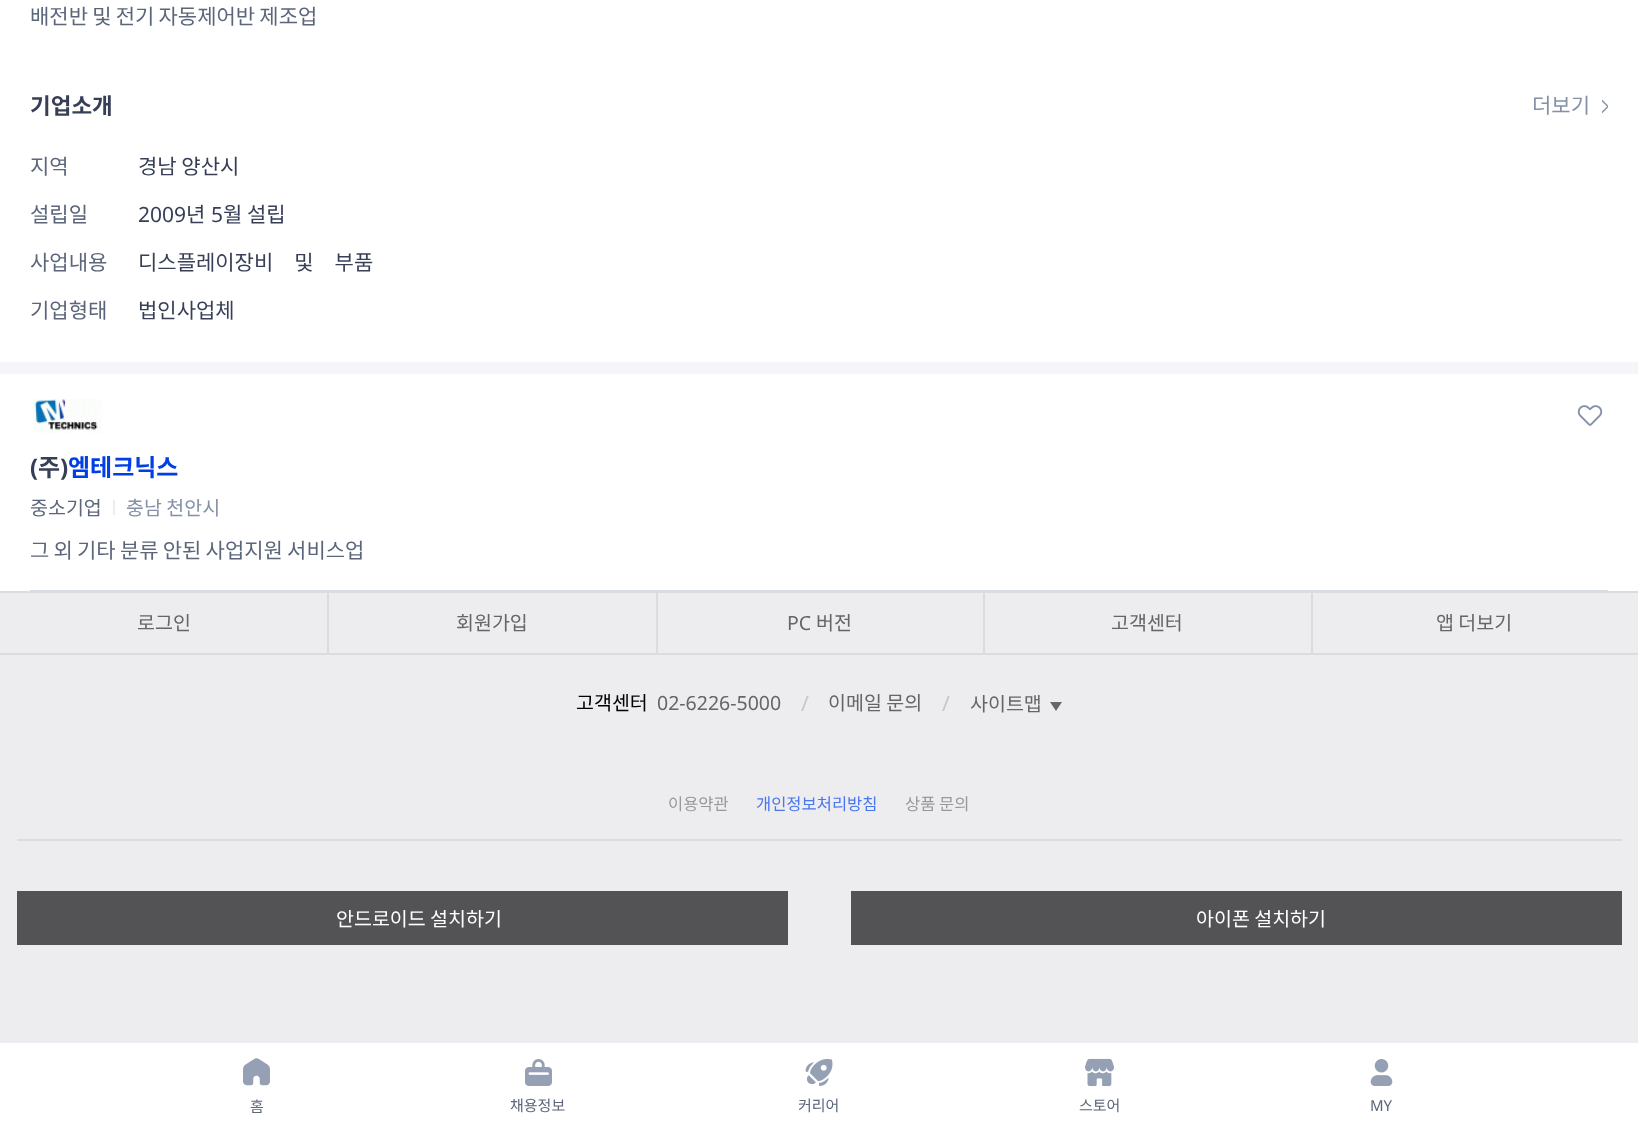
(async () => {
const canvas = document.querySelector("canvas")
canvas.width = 1638
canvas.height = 1125
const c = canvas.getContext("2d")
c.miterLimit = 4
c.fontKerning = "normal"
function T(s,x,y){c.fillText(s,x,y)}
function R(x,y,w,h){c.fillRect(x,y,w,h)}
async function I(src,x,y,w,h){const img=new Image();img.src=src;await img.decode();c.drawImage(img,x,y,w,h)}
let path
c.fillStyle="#fff"
R(0,0,1638,1125)
c.wordSpacing="-0.5px"
c.font="21px Noto Sans KR"
c.fillStyle="#5c667b"
T("배전반 및 전기 자동제어반 제조업",30,24)
c.wordSpacing="0px"
c.font="bold 22.5px Noto Sans KR"
c.fillStyle="#373f57"
T("기업소개",30,114)
c.font="21px Noto Sans KR"
c.fillStyle="#8491a7"
T("더보기",1532,113)
c.save()
c.beginPath()
c.rect(1602,99,6,15)
c.clip()
path = new Path2D("M1602 112.5l6-6l-6-6")
c.strokeStyle="#8491a7"
c.lineWidth=1.5
c.lineCap="round"
c.lineJoin="round"
c.stroke(path)
c.restore()
c.fillStyle="#5c667b"
T("지역",30,174)
c.fillStyle="#373f57"
T("경남 양산시",138,174)
c.fillStyle="#5c667b"
T("설립일",30,222)
c.font="21px Noto Sans"
c.fillStyle="#373f57"
T("2009",138,222)
c.font="21px Noto Sans KR"
T("년",186,222)
c.font="21px Noto Sans"
T("5",211,222)
c.font="21px Noto Sans KR"
T("월 설립",223,222)
c.fillStyle="#5c667b"
T("사업내용",30,270)
c.fillStyle="#373f57"
T("디스플레이장비　및　부품",138,270)
c.fillStyle="#5c667b"
T("기업형태",30,318)
c.fillStyle="#373f57"
T("법인사업체",138,318)
c.fillStyle="#f4f6fa"
R(0,362,1638,12)
await I("1.png",1577,405,26,21)
c.fillStyle="#d7dce5"
R(30,590,1578,1)
await I("2.png",33,399,69,34)
c.font="bold 24px Noto Sans"
c.fillStyle="#373f57"
T("(",30,476)
c.font="bold 24px Noto Sans KR"
T("주",38,476)
c.font="bold 24px Noto Sans"
T(")",60,476)
c.font="bold 24px Noto Sans KR"
c.fillStyle="#003fe5"
T("엠테크닉스",68,476)
c.font="19.5px Noto Sans KR"
c.fillStyle="#5c667b"
T("중소기업",30,515)
c.fillStyle="#eaedf4"
R(113,500,2,15)
c.fillStyle="#8491a7"
T("충남 천안시",126,515)
c.wordSpacing="-0.5px"
c.font="21px Noto Sans KR"
c.fillStyle="#5c667b"
T("그 외 기타 분류 안된 사업지원 서비스업",30,558)
c.fillStyle="#ededef"
R(0,593,1638,448)
c.fillStyle="#dcdcde"
R(0,591,1638,2)
R(0,653,1638,2)
c.wordSpacing="0px"
c.font="19.5px Noto Sans KR"
c.fillStyle="#666"
T("로그인",137,630)
c.fillStyle="#dcdcde"
R(327,593,2,60)
c.fillStyle="#666"
T("회원가입",456,630)
c.fillStyle="#dcdcde"
R(656,593,2,60)
c.font="19.5px Noto Sans"
c.fillStyle="#666"
T("PC",787,630)
c.font="19.5px Noto Sans KR"
T("버전",816,630)
c.fillStyle="#dcdcde"
R(983,593,2,60)
c.fillStyle="#666"
T("고객센터",1111,630)
c.fillStyle="#dcdcde"
R(1311,593,2,60)
c.fillStyle="#666"
T("앱 더보기",1436,630)
c.fillStyle="#000"
T("고객센터",576,710)
c.font="19.5px Noto Sans"
c.fillStyle="#666"
T("02-6226-5000",657,710)
c.font="21px Noto Sans"
c.fillStyle="#c7c7c8"
T("/",801,711)
c.font="19.5px Noto Sans KR"
c.fillStyle="#666"
T("이메일 문의",828,710)
c.font="21px Noto Sans"
c.fillStyle="#c7c7c8"
T("/",942,711)
c.font="19.5px Noto Sans KR"
c.fillStyle="#666"
T("사이트맵",970,711)
path = new Path2D("M1050 702h12l-6 9z")
c.fill(path)
c.font="16.5px Noto Sans KR"
c.fillStyle="#999"
T("이용약관",668,810)
c.fillStyle="#4876ef"
T("개인정보처리방침",756,810)
c.fillStyle="#999"
T("상품 문의",905,810)
c.fillStyle="#dcdcde"
R(17,839,1605,2)
c.fillStyle="#535355"
R(17,891,771,54)
c.font="19.5px Noto Sans KR"
c.fillStyle="#fff"
T("안드로이드 설치하기",336,926)
c.fillStyle="#535355"
R(851,891,771,54)
c.fillStyle="#fff"
T("아이폰 설치하기",1196,926)
c.fillStyle="#eaedf4"
R(0,1041,1638,2)
await I("3.png",243,1058,27,28)
c.font="15px Noto Sans KR"
c.fillStyle="#5c667b"
T("홈",250,1112)
await I("4.png",525,1059,27,27)
T("채용정보",510,1111)
await I("5.png",805,1059,28,27)
T("커리어",798,1111)
await I("6.png",1085,1058,29,29)
T("스토어",1079,1111)
await I("7.png",1370,1059,23,27)
c.font="15px Noto Sans"
T("MY",1370,1111)
})()
